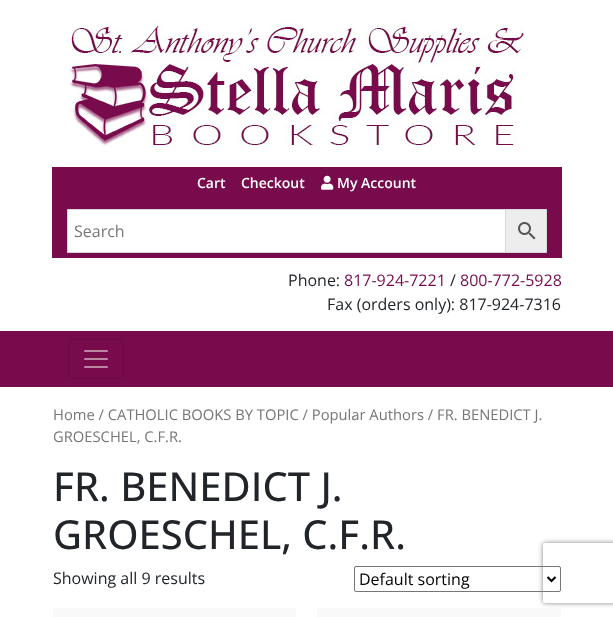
(async () => {
const canvas = document.querySelector("canvas")
canvas.width = 613
canvas.height = 617
const c = canvas.getContext("2d")
c.miterLimit = 4
c.fontKerning = "normal"
function T(s,x,y){c.fillText(s,x,y)}
function R(x,y,w,h){c.fillRect(x,y,w,h)}
async function I(src,x,y,w,h){const img=new Image();img.src=src;await img.decode();c.drawImage(img,x,y,w,h)}
let path
c.fillStyle="#fff"
R(0,0,613,617)
await I("1.png",69,20,456,127)
c.fillStyle="#780b4c"
R(52,167,510,91)
c.font="600 14px Open Sans"
c.fillStyle="#fff"
T("Cart",197,188)
T("Checkout",241,188)
await I("2.png",321,175,13,15)
T("My Account",337,188)
c.fillStyle="#ededed"
c.beginPath()
c.rect(505.5,209.5,41,43)
c.fill()
c.strokeStyle="#d8d8d8"
c.stroke()
c.fillStyle="#fff"
c.beginPath()
c.rect(67.5,209.5,438,43)
c.fill()
c.stroke()
c.font="16px Open Sans"
c.fillStyle="#767676"
T("Search",74,237)
await I("3.png",518,222,18,18)
c.fillStyle="#212529"
T("Phone:",288,286)
c.fillStyle="#780b4c"
T("817-924-7221",344,286)
c.fillStyle="#212529"
T("/",450,286)
c.fillStyle="#780b4c"
T("800-772-5928",460,286)
c.fillStyle="#212529"
T("Fax (orders only): 817-924-7316",327,310)
c.fillStyle="#780b4c"
R(0,331,613,56)
c.beginPath()
c.roundRect(68.5,339.5,55,39,3.5)
c.strokeStyle="#6c0a44"
c.stroke()
await I("4.png",84,350,24,18)
c.font="14.75px Open Sans"
c.fillStyle="#767676"
T("Home / CATHOLIC BOOKS BY TOPIC / Popular Authors / FR. BENEDICT J.",53,420)
T("GROESCHEL, C.F.R.",53,442)
c.font="500 40px Open Sans"
c.fillStyle="#212529"
T("FR. BENEDICT J.",53,501)
T("GROESCHEL, C.F.R.",53,549)
c.font="16px Open Sans"
T("Showing all 9 results",53,584)
c.beginPath()
c.roundRect(354.5,566.5,206,25,1.5)
c.strokeStyle="#767676"
c.stroke()
path = new Path2D("M547.5 577l4 4l4-4")
c.strokeStyle="#000"
c.lineWidth=2
c.stroke(path)
c.fillStyle="#000"
T("Default sorting",359,585)
c.fillStyle="#f9f9f9"
R(53,608,243,9)
R(317,608,244,9)
c.save()
path = new Path2D("M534 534h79v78h-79zm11 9h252c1 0 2 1 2 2v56c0 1-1 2-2 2h-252c-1 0-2-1-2-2v-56c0-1 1-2 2-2z")
c.clip(path,"evenodd")
c.fillStyle="#808080"
c.filter="blur(2.5px)"
c.beginPath()
c.roundRect(543,543,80,60,2)
c.fill()
c.filter="none"
c.restore()
})()
